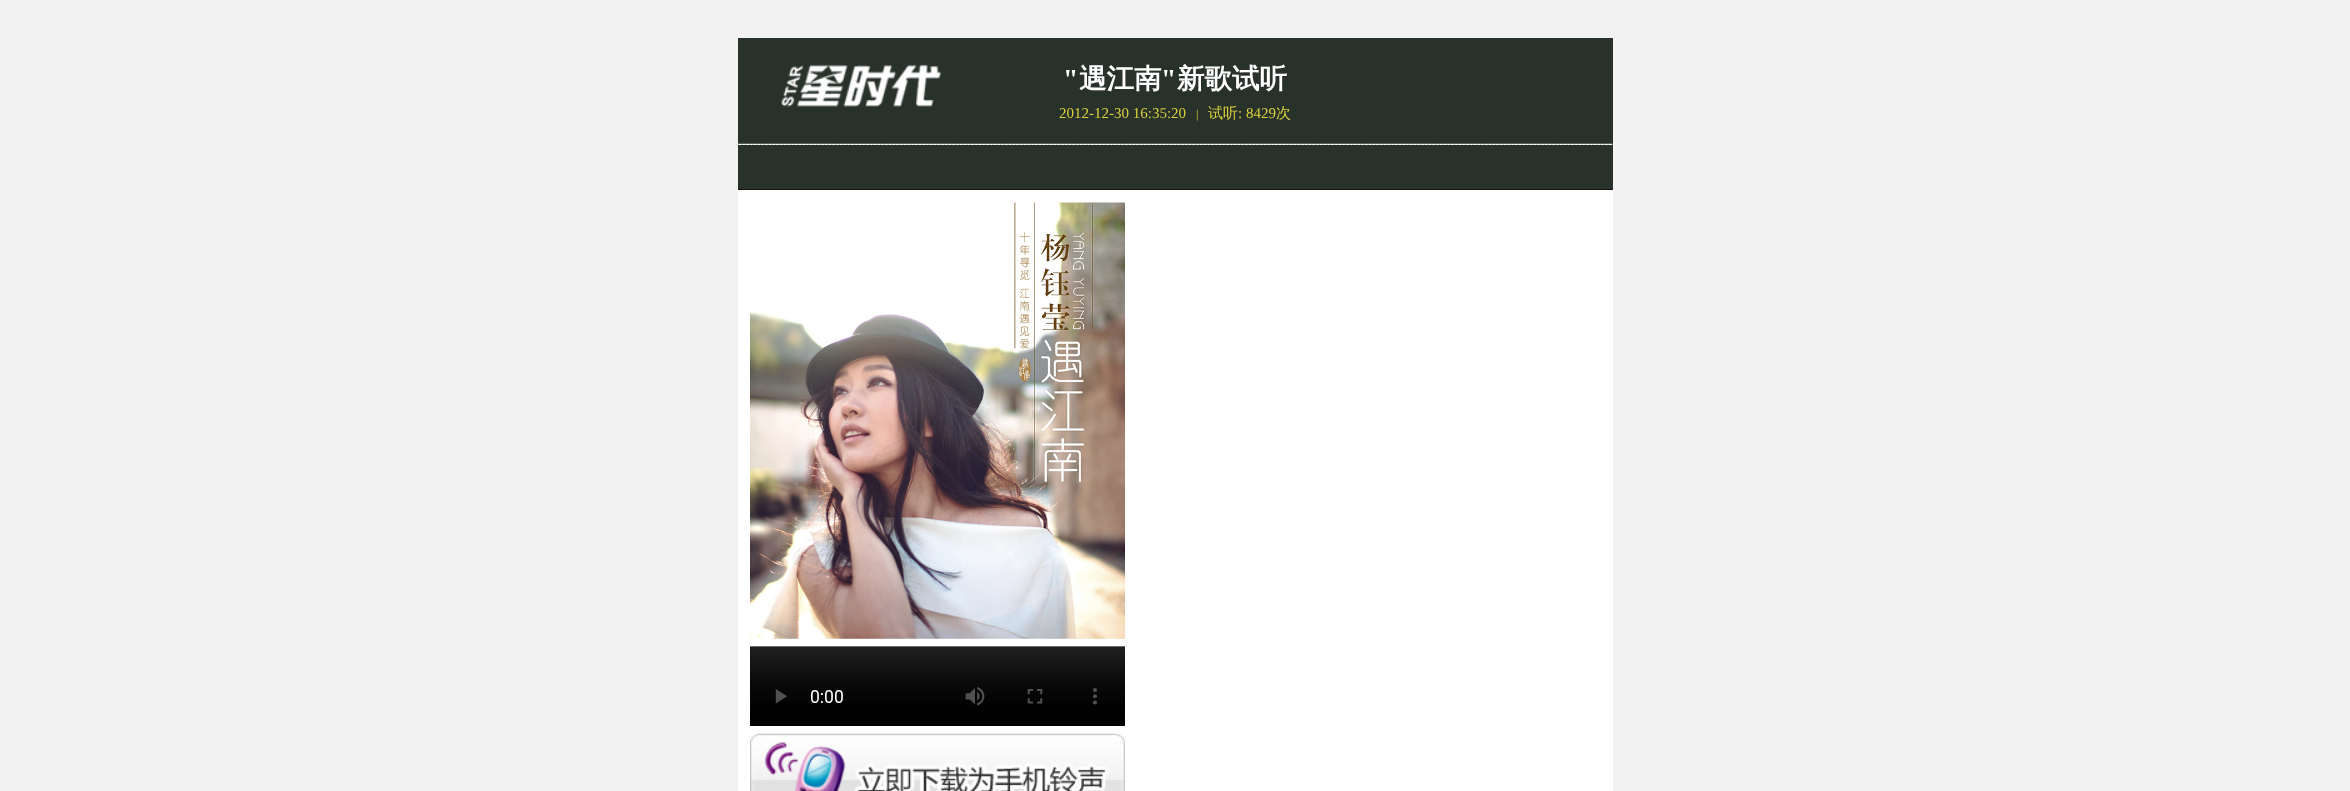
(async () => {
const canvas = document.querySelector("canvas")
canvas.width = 2350
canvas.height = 791
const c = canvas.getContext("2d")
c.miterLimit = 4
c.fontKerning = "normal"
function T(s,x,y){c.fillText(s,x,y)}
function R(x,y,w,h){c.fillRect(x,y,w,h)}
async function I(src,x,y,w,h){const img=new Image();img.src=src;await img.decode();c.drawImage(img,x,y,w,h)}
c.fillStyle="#f2f2f2"
R(0,0,2350,791)
c.fillStyle="#fff"
R(738,190,875,601)
c.fillStyle="#28312a"
R(738,38,875,151)
c.fillStyle="#111412"
R(738,189,875,1)
await I("1.png",781,64,161,43)
c.font="bold 27.5px Liberation Serif"
c.fillStyle="#fff"
T("\"",1063,88)
c.font="bold 27.5px WenQuanYi Zen Hei"
T("遇江南",1079,88)
c.font="bold 27.5px Liberation Serif"
T("\"",1161,88)
c.font="bold 27.5px WenQuanYi Zen Hei"
T("新歌试听",1177,88)
await I("2.png",737,143,876,2)
c.font="15px Liberation Serif"
c.fillStyle="#dad13f"
T("2012-12-30 16:35:20",1059,118)
c.font="12px Liberation Serif"
T("|",1196,118)
c.font="500 15px WenQuanYi Zen Hei"
T("试听",1208,118)
c.font="15px Liberation Serif"
T(": 8429",1238,118)
c.font="500 15px WenQuanYi Zen Hei"
T("次",1276,118)
await I("3.png",750,202,375,437)
await I("4.png",750,646,375,80)
await I("5.png",750,733,375,58)
})()
